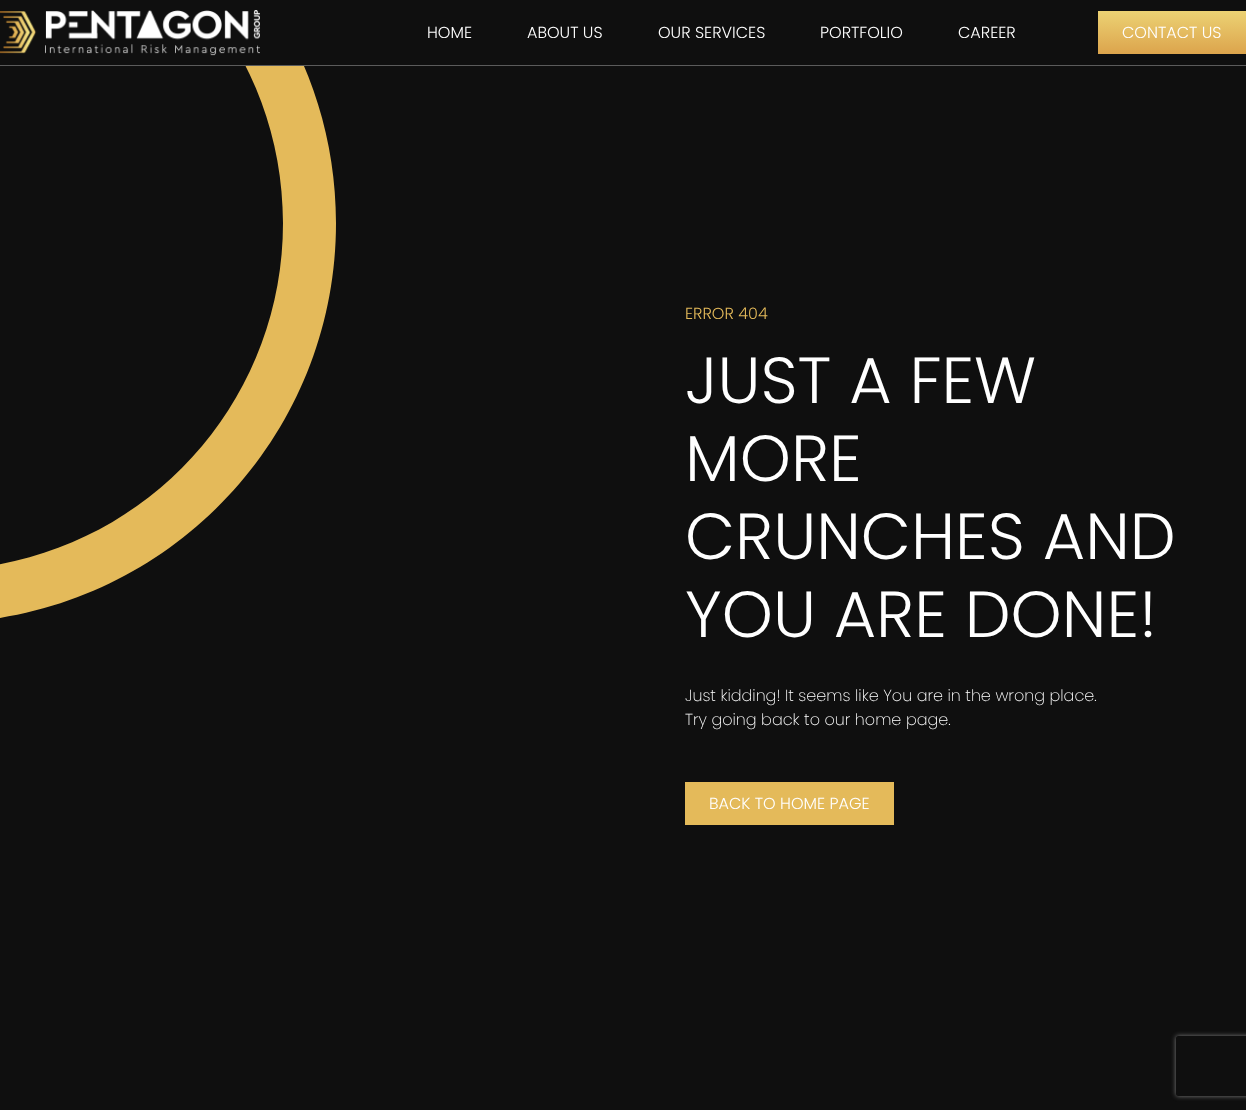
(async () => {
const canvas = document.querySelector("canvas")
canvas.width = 1246
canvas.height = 1110
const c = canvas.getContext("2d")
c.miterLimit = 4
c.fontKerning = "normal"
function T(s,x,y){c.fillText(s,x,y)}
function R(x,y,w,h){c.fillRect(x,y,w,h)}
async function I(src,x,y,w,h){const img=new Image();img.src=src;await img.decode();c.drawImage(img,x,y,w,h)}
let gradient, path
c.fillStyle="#0f0f0f"
R(0,0,1246,1110)
c.fillStyle="#e4ba5a"
path = new Path2D("M-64-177c-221 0-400 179-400 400c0 221 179 400 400 400c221 0 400-179 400-400c0-221-179-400-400-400zm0 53c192 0 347 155 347 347c0 192-155 347-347 347c-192 0-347-155-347-347c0-192 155-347 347-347z")
c.fill(path)
c.fillStyle="#0f0f0f"
R(202,0,102,65)
c.fillStyle="#5b5b5b"
R(0,65,1246,1)
await I("1.png",0,10,260,46)
c.font="300 16px Poppins"
c.fillStyle="#fff"
T("HOME",427,38)
T("ABOUT US",527,38)
T("OUR SERVICES",658,38)
T("PORTFOLIO",820,38)
T("CAREER",958,38)
gradient = c.createLinearGradient(1172,11,1172,54)
gradient.addColorStop(0,"#ecd274")
gradient.addColorStop(1,"#dca44c")
c.fillStyle = gradient
R(1098,11,148,43)
c.fillStyle="#fff"
T("CONTACT US",1122,38)
c.fillStyle="#e4ba5a"
T("ERROR 404",685,319)
c.font="300 65px Poppins"
c.fillStyle="#fff"
T("JUST A FEW",685,403)
T("MORE",685,481)
T("CRUNCHES AND",685,559)
T("YOU ARE DONE!",685,637)
c.font="200 16px Poppins"
T("Just kidding! It seems like You are in the wrong place.",685,701)
T("Try going back to our home page.",685,725)
c.fillStyle="#e4ba5a"
R(685,782,209,43)
c.font="300 16px Poppins"
c.fillStyle="#fff"
T("BACK TO HOME PAGE",709,809)
c.save()
path = new Path2D("M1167 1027h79v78h-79zm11 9h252c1 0 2 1 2 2v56c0 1-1 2-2 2h-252c-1 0-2-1-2-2v-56c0-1 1-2 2-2z")
c.clip(path,"evenodd")
c.fillStyle="#808080"
c.filter="blur(2.5px)"
c.beginPath()
c.roundRect(1176,1036,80,60,2)
c.fill()
c.filter="none"
c.restore()
})()
